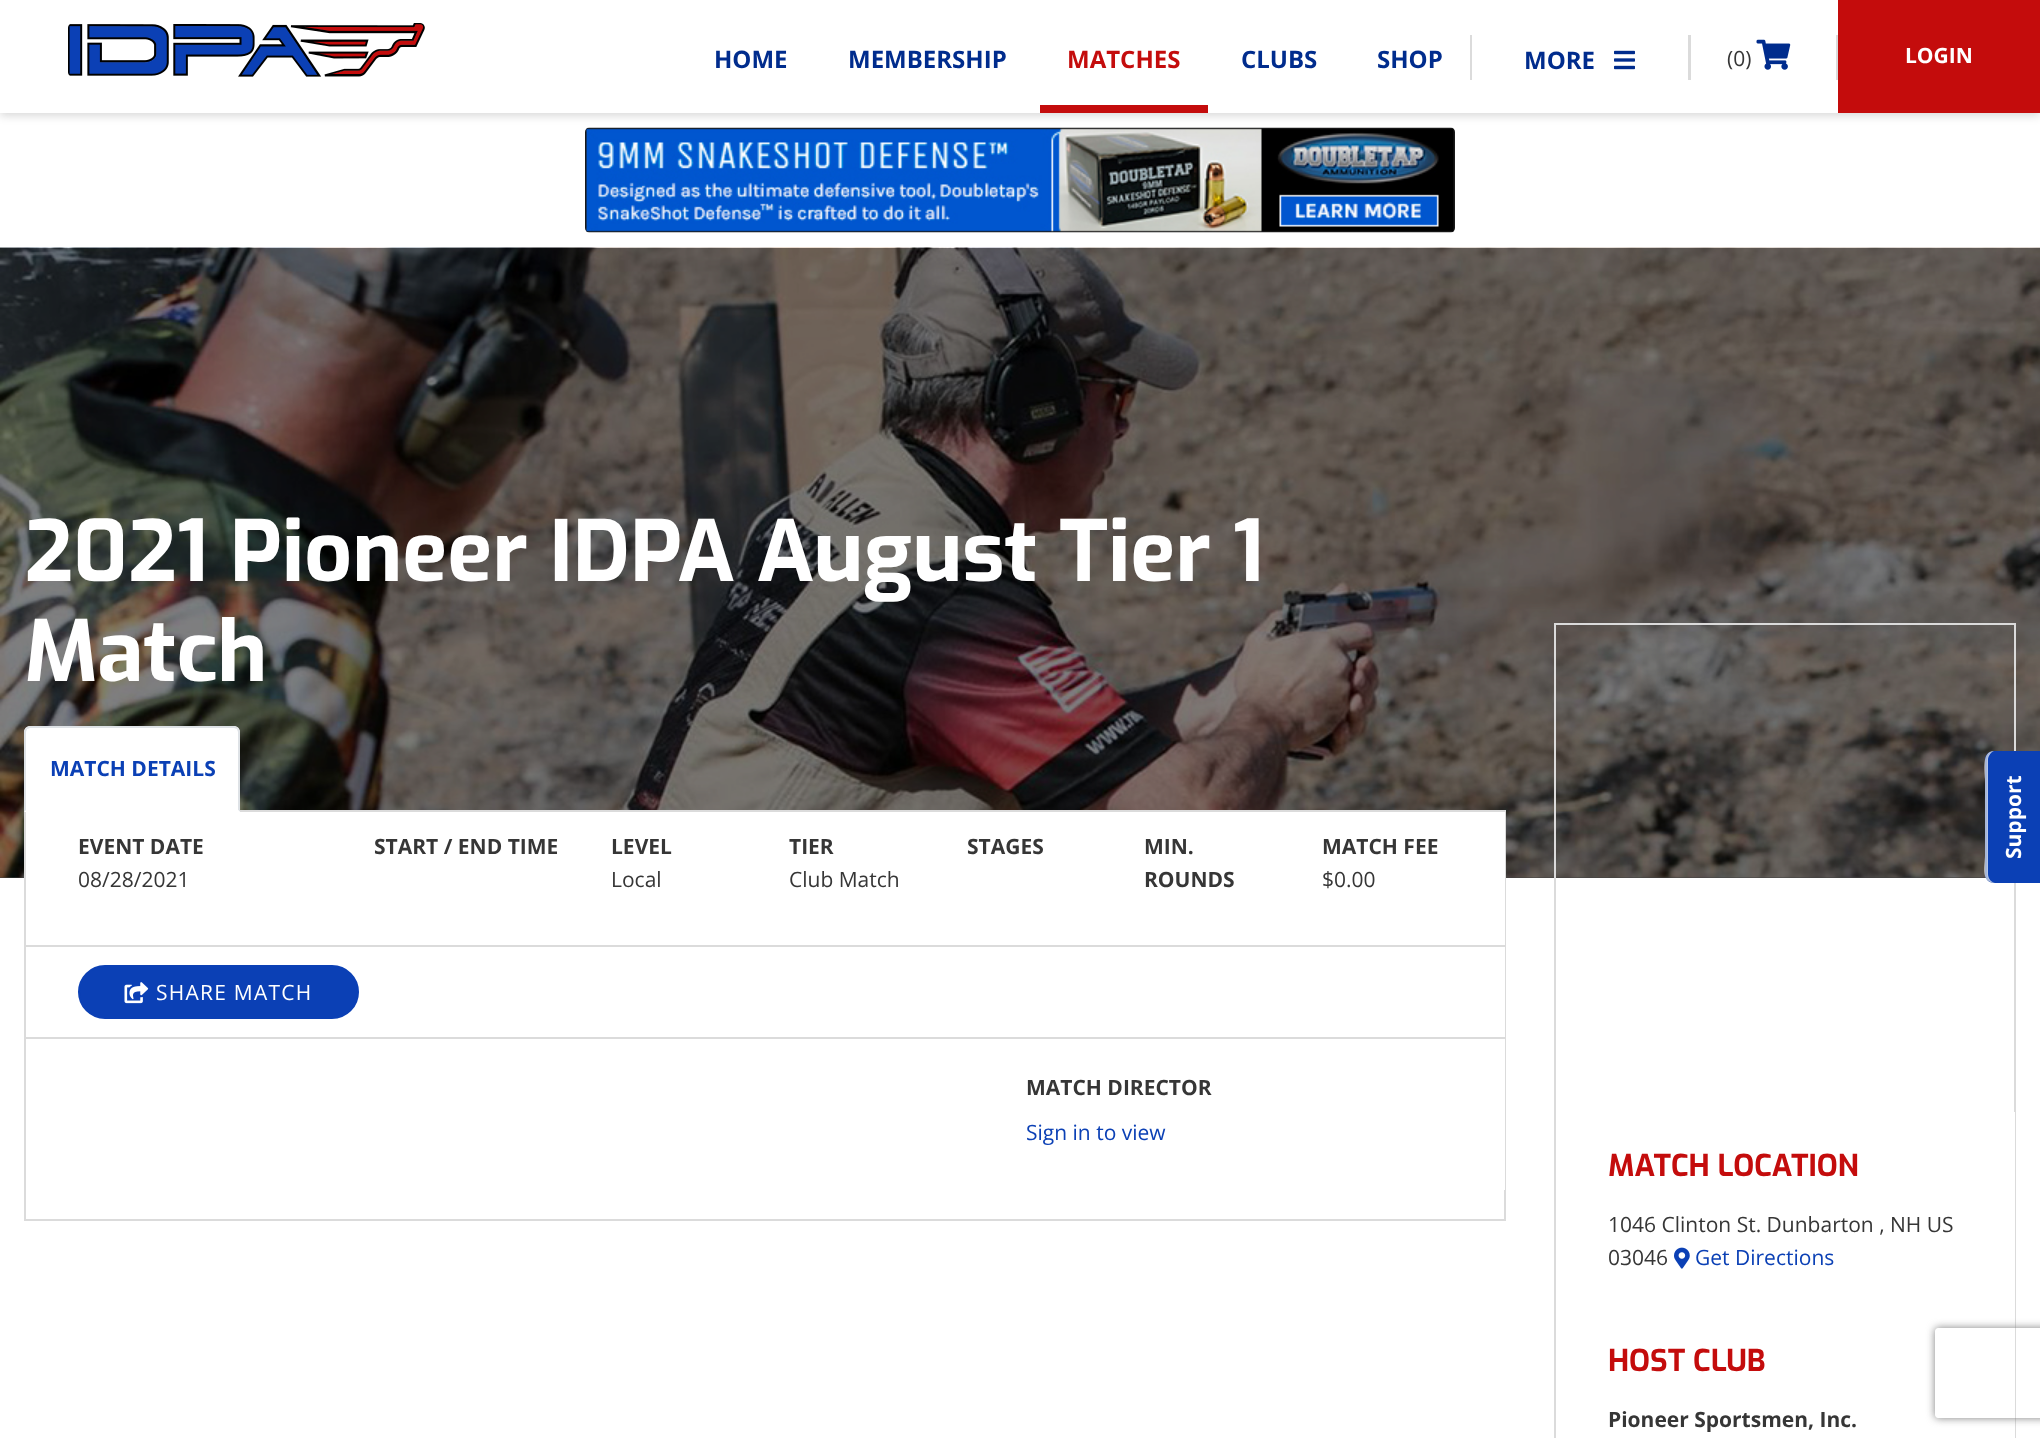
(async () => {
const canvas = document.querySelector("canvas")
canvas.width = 2040
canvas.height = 1438
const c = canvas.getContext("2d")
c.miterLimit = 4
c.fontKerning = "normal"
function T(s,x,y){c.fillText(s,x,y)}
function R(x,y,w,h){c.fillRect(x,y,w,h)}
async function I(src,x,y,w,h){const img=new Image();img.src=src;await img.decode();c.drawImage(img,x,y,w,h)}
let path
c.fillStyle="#fff"
R(0,0,2040,1438)
await I("4.png",585,127,870,106)
c.fillStyle="#00000026"
c.filter="blur(4.5px)"
c.beginPath()
c.rect(0,3,2040,113)
c.fill()
c.filter="none"
c.fillStyle="#fff"
R(0,0,1838,113)
await I("1.png",68,23,357,54)
c.font="bold 24px Open Sans"
c.fillStyle="#002c8d"
T("HOME",714,68)
T("MEMBERSHIP",848,68)
c.fillStyle="#c40c0c"
R(1040,105,168,8)
T("MATCHES",1067,68)
c.fillStyle="#002c8d"
T("CLUBS",1241,68)
T("SHOP",1377,68)
c.fillStyle="#dbdbdb"
R(1688,35,3,45)
R(1470,35,2,45)
c.fillStyle="#002c8d"
T("MORE",1524,69)
await I("2.png",1614,50,21,20)
c.fillStyle="#dbdbdb"
R(1836,35,2,45)
c.font="21px Open Sans"
c.fillStyle="#363636"
T("(0)",1727,66)
await I("3.png",1756,39,35,31)
c.fillStyle="#c40c0c"
R(1838,0,202,113)
c.font="bold 21px Open Sans"
c.fillStyle="#fff"
T("LOGIN",1905,63)
c.fillStyle="#404040"
R(0,877,1986,1)
await I("5.png",0,247,2040,631)
c.font="bold 84px Exo"
c.fillStyle="#fff"
T("2021 Pioneer IDPA August Tier 1",24,581)
T("Match",24,681)
c.strokeStyle="#dbdbdb"
c.lineWidth=2
c.strokeRect(25,811,1480,409)
c.beginPath()
c.roundRect(24,726,216,86,[6,6,0,0])
c.fill()
c.fillStyle="#dee2e6"
path = new Path2D("M30 726c-2 0-3 1-4 2l1 1l3-1h170h34l3 1l1-1c-1-1-2-2-4-2z")
c.fill(path)
path = new Path2D("M240 812v-81l-2-3l-1 1l1 3v78z")
c.fill(path)
c.fillStyle="#fff"
path = new Path2D("M240 812h-216l2-2h212z")
c.fill(path)
c.fillStyle="#dee2e6"
path = new Path2D("M24 812l2-2v-78l1-3l-1-1c-1 1-2 2-2 4z")
c.fill(path)
c.font="bold 21px Open Sans"
c.fillStyle="#0b40b5"
T("MATCH DETAILS",50,776)
c.fillStyle="#fff"
R(26,812,1479,378)
c.fillStyle="#dbdbdb"
R(26,945,1479,2)
c.fillStyle="#363636"
T("EVENT DATE",78,854)
c.font="21px Open Sans"
T("08/28/2021",78,887)
c.font="bold 21px Open Sans"
T("START / END TIME",374,854)
T("LEVEL",611,854)
c.font="21px Open Sans"
T("Local",611,887)
c.font="bold 21px Open Sans"
T("TIER",789,854)
c.font="21px Open Sans"
T("Club Match",789,887)
c.font="bold 21px Open Sans"
T("STAGES",967,854)
T("MIN.",1144,854)
T("ROUNDS",1144,887)
T("MATCH FEE",1322,854)
c.font="21px Open Sans"
T("$0.00",1322,887)
c.fillStyle="#dbdbdb"
R(26,1037,1479,2)
c.fillStyle="#0b40b5"
c.beginPath()
c.roundRect(79,966,279,52,26)
c.fill()
c.strokeStyle="#0b40b5"
c.stroke()
await I("6.png",124,982,25,22)
c.letterSpacing="1.25px"
c.fillStyle="#fff"
T("SHARE MATCH",156,1000)
c.letterSpacing="0px"
c.font="bold 21px Open Sans"
c.fillStyle="#363636"
T("MATCH DIRECTOR",1026,1095)
c.font="21px Open Sans"
c.fillStyle="#0b40b5"
T("Sign in to view",1026,1140)
c.strokeStyle="#dbdbdb"
c.strokeRect(1555,624,460,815)
c.fillStyle="#fff"
R(2014,1112,1,326)
c.font="bold 30px Exo"
c.fillStyle="#c40c0c"
T("MATCH LOCATION",1608,1176)
c.font="21px Open Sans"
c.fillStyle="#363636"
T("1046 Clinton St. Dunbarton , NH US",1608,1232)
T("03046",1608,1265)
await I("7.png",1674,1247,16,22)
c.fillStyle="#0b40b5"
T("Get Directions",1695,1265)
c.font="bold 30px Exo"
c.fillStyle="#c40c0c"
T("HOST CLUB",1608,1371)
c.font="bold 21px Open Sans"
c.fillStyle="#363636"
T("Pioneer Sportsmen, Inc.",1608,1427)
c.fillStyle="#0000001a"
c.filter="blur(7.5px)"
c.beginPath()
c.roundRect(1949,788,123,58,9)
c.fill()
c.filter="none"
c.fillStyle="#0b40b5"
path = new Path2D("M1985 874v-114c0-5 4-9 9-9h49v132h-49c-5 0-9-4-9-9z")
c.fill(path)
c.fillStyle="#ffffffb3"
path = new Path2D("M1988 874c0 5 4 9 8 9c-16 0-11-17-11-28v-76c0-7-4-28 9-28c-3 1-6 5-6 9z")
c.fill(path)
c.fillStyle="#00000014"
path = new Path2D("M1987 874c0 5 4 9 8 9h-1c-5 0-9-4-9-9v-114c0-4 4-8 8-9c-3 1-6 5-6 9z")
c.fill(path)
c.fillStyle="#fff"
c.save()
c.translate(2021,859)
c.rotate(-90 * Math.PI / 180)
c.fillText("Support",0,0)
c.restore()
c.save()
path = new Path2D("M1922 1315h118v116h-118zm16 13h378c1.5 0 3 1.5 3 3v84c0 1.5-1.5 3-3 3h-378c-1.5 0-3-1.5-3-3v-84c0-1.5 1.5-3 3-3z")
c.clip(path,"evenodd")
c.fillStyle="#808080"
c.filter="blur(4px)"
c.beginPath()
c.roundRect(1935,1328,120,90,3)
c.fill()
c.filter="none"
c.restore()
})()
